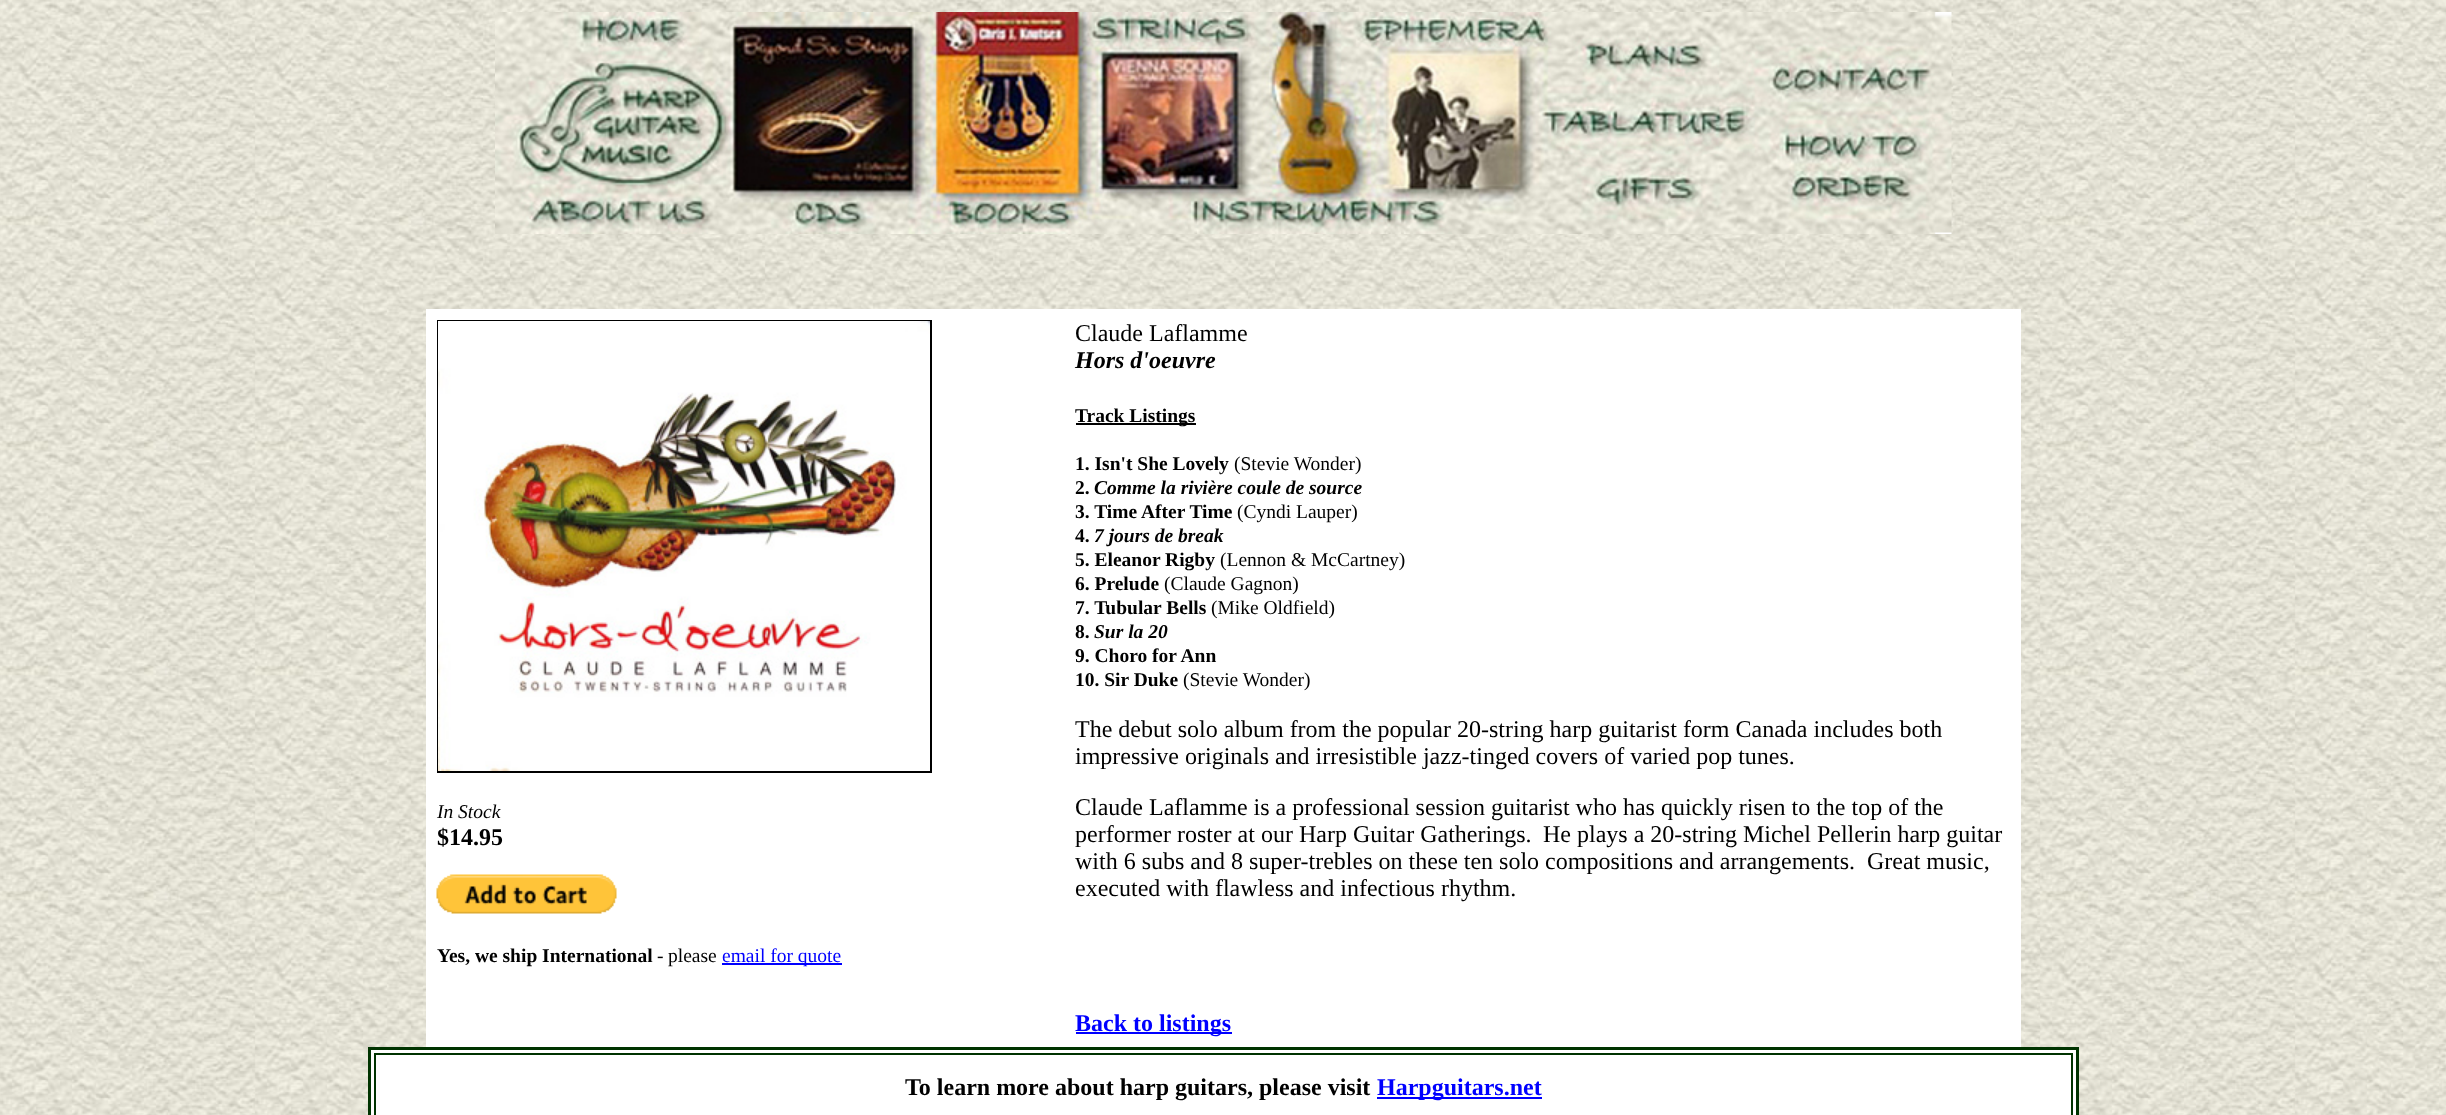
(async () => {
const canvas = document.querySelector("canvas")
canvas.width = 2446
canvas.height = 1115
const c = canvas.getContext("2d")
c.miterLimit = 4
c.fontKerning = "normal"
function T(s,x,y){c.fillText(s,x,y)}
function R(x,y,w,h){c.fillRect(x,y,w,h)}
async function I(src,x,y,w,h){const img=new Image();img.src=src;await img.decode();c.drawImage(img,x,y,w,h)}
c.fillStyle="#fff"
R(0,0,2446,1115)
await I("1.png",0,0,2446,1115)
await I("2.png",495,12,1457,222)
R(426,309,1595,738)
c.font="24px Liberation Serif"
c.fillStyle="#000"
T("Claude Laflamme",1075,341)
c.font="italic bold 24px Liberation Serif"
T("Hors d'oeuvre",1075,368)
c.strokeStyle="#000"
c.lineWidth=2
c.strokeRect(438,321,493,451)
await I("3.png",438,321,492,450)
c.font="italic 19.5px Liberation Serif"
T("In Stock",437,818)
c.font="bold 24px Liberation Serif"
T("$14.95",437,845)
await I("4.png",436,874,181,40)
c.font="bold 19.5px Liberation Serif"
T("Yes, we ship International",437,962)
c.font="italic 19.5px Liberation Serif"
T("-",657,962)
c.font="19.5px Liberation Serif"
T("please",668,962)
c.fillStyle="#00f"
R(722,963,120,2)
T("email for quote",722,962)
c.fillStyle="#000"
R(1076,423,120,2)
c.font="bold 19.5px Liberation Serif"
T("Track Listings",1075,422)
T("1. Isn't She Lovely",1075,470)
c.font="19.5px Liberation Serif"
T("(Stevie Wonder)",1234,470)
c.font="bold 19.5px Liberation Serif"
T("2.",1075,494)
c.font="italic bold 19.5px Liberation Serif"
T("Comme la rivière coule de source",1094,494)
c.font="bold 19.5px Liberation Serif"
T("3. Time After Time",1075,518)
c.font="19.5px Liberation Serif"
T("(Cyndi Lauper)",1237,518)
c.font="bold 19.5px Liberation Serif"
T("4.",1075,542)
c.font="italic bold 19.5px Liberation Serif"
T("7 jours de break",1094,542)
c.font="bold 19.5px Liberation Serif"
T("5. Eleanor Rigby",1075,566)
c.font="19.5px Liberation Serif"
T("(Lennon & McCartney)",1220,566)
c.font="bold 19.5px Liberation Serif"
T("6. Prelude",1075,590)
c.font="19.5px Liberation Serif"
T("(Claude Gagnon)",1164,590)
c.font="bold 19.5px Liberation Serif"
T("7. Tubular Bells",1075,614)
c.font="19.5px Liberation Serif"
T("(Mike Oldfield)",1211,614)
c.font="bold 19.5px Liberation Serif"
T("8.",1075,638)
c.font="italic bold 19.5px Liberation Serif"
T("Sur la 20",1094,638)
c.font="bold 19.5px Liberation Serif"
T("9. Choro for Ann",1075,662)
T("10. Sir Duke",1075,686)
c.font="19.5px Liberation Serif"
T("(Stevie Wonder)",1183,686)
c.font="24px Liberation Serif"
T("The debut solo album from the popular 20-string harp guitarist form Canada includes both",1075,737)
T("impressive originals and irresistible jazz-tinged covers of varied pop tunes.",1075,764)
T("Claude Laflamme is a professional session guitarist who has quickly risen to the top of the",1075,815)
T("performer roster at our Harp Guitar Gatherings.",1075,842)
T("He plays a 20-string Michel Pellerin harp guitar",1543,842)
T("with 6 subs and 8 super-trebles on these ten solo compositions and arrangements.",1075,869)
T("Great music,",1867,869)
T("executed with flawless and infectious rhythm.",1075,896)
c.fillStyle="#00f"
R(1076,1032,156,2)
c.font="bold 24px Liberation Serif"
T("Back to listings",1075,1031)
c.fillStyle="#fff"
c.beginPath()
c.rect(369.5,1048.5,1708,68)
c.fill()
c.strokeStyle="#030"
c.lineWidth=3
c.stroke()
c.lineWidth=2
c.strokeRect(375,1054,1697,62)
c.fillStyle="#000"
T("To learn more about harp guitars, please visit",905,1095)
c.fillStyle="#00f"
R(1377,1097,165,2)
T("Harpguitars.net",1377,1095)
})()
